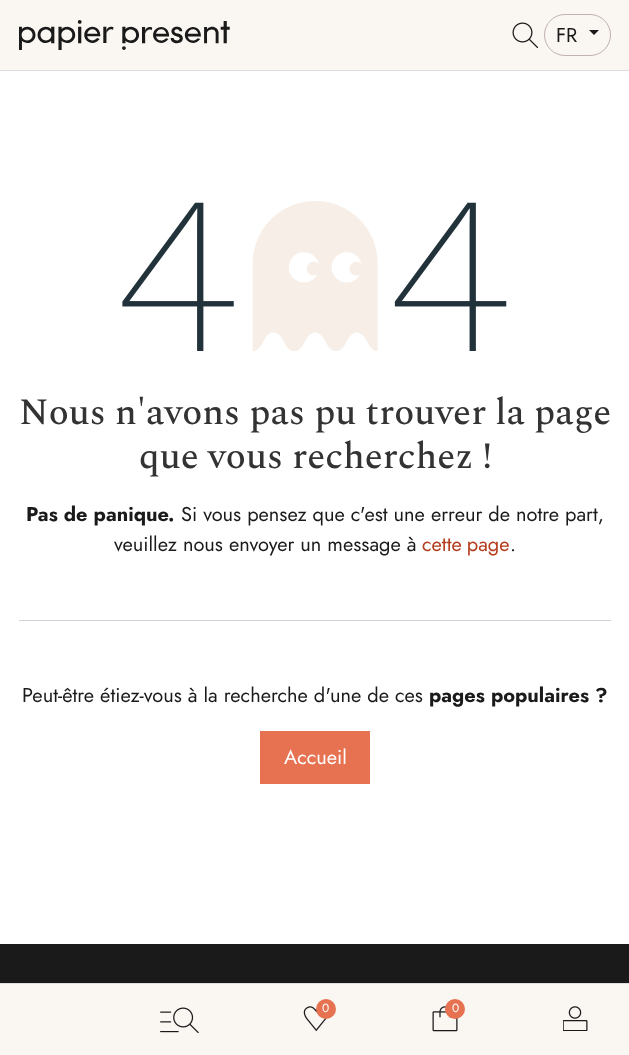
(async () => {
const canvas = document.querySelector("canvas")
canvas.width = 629
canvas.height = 1055
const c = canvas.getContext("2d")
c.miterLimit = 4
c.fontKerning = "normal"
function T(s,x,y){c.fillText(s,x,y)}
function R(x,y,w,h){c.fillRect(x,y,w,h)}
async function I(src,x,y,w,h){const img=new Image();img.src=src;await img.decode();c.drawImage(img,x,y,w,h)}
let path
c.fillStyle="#fff"
R(0,0,629,1055)
c.fillStyle="#faf6f2"
R(0,0,629,70)
c.fillStyle="#dedede"
R(0,70,629,1)
await I("1.png",19,20,211,30)
await I("2.png",512,22,27,27)
c.beginPath()
c.roundRect(544.5,14.5,66,41,20.5)
c.strokeStyle="#c1b2b2"
c.stroke()
c.font="20px Jost"
c.fillStyle="#1a1a1a"
T("FR",556,42)
path = new Path2D("M589 30h10l-5 5z")
c.fill(path)
await I("3.png",122,201,385,150)
c.font="500 37px Spectral"
c.fillStyle="#333"
T("Nous n'avons pas pu trouver la page",19,424)
T("que vous recherchez !",139,468)
c.font="bold 20px Jost"
c.fillStyle="#1a1a1a"
T("Pas de panique.",26,521)
c.font="20px Jost"
T("Si vous pensez que c'est une erreur de notre part,",181,521)
T("veuillez nous envoyer un message à",114,551)
c.wordSpacing="-1px"
c.fillStyle="#b33b1a"
T("cette page",422,551)
c.wordSpacing="0px"
c.fillStyle="#1a1a1a"
T(".",510,551)
c.fillStyle="#ced4da"
R(19,620,592,1)
c.fillStyle="#1a1a1a"
T("Peut-être étiez-vous à la recherche d'une de ces",22,702)
c.font="bold 20px Jost"
T("pages populaires ?",429,702)
c.fillStyle="#e67252"
R(260,731,110,53)
c.font="20px Jost"
c.fillStyle="#fff"
T("Accueil",284,764)
c.fillStyle="#1a1a1a"
R(0,944,629,39)
c.fillStyle="#faf6f2"
R(0,984,629,71)
c.fillStyle="#dedede"
R(0,983,629,1)
await I("4.png",160,1007,39,27)
await I("5.png",303,1006,24,26)
c.fillStyle="#e67252"
c.beginPath()
c.arc(326,1009,10,0,7)
c.fill()
c.font="12px Jost"
c.fillStyle="#fff"
T("0",322,1012)
await I("6.png",432,1006,26,26)
c.fillStyle="#e67252"
c.beginPath()
c.arc(455,1009,10,0,7)
c.fill()
c.fillStyle="#fff"
T("0",452,1012)
await I("7.png",563,1006,25,25)
})()
